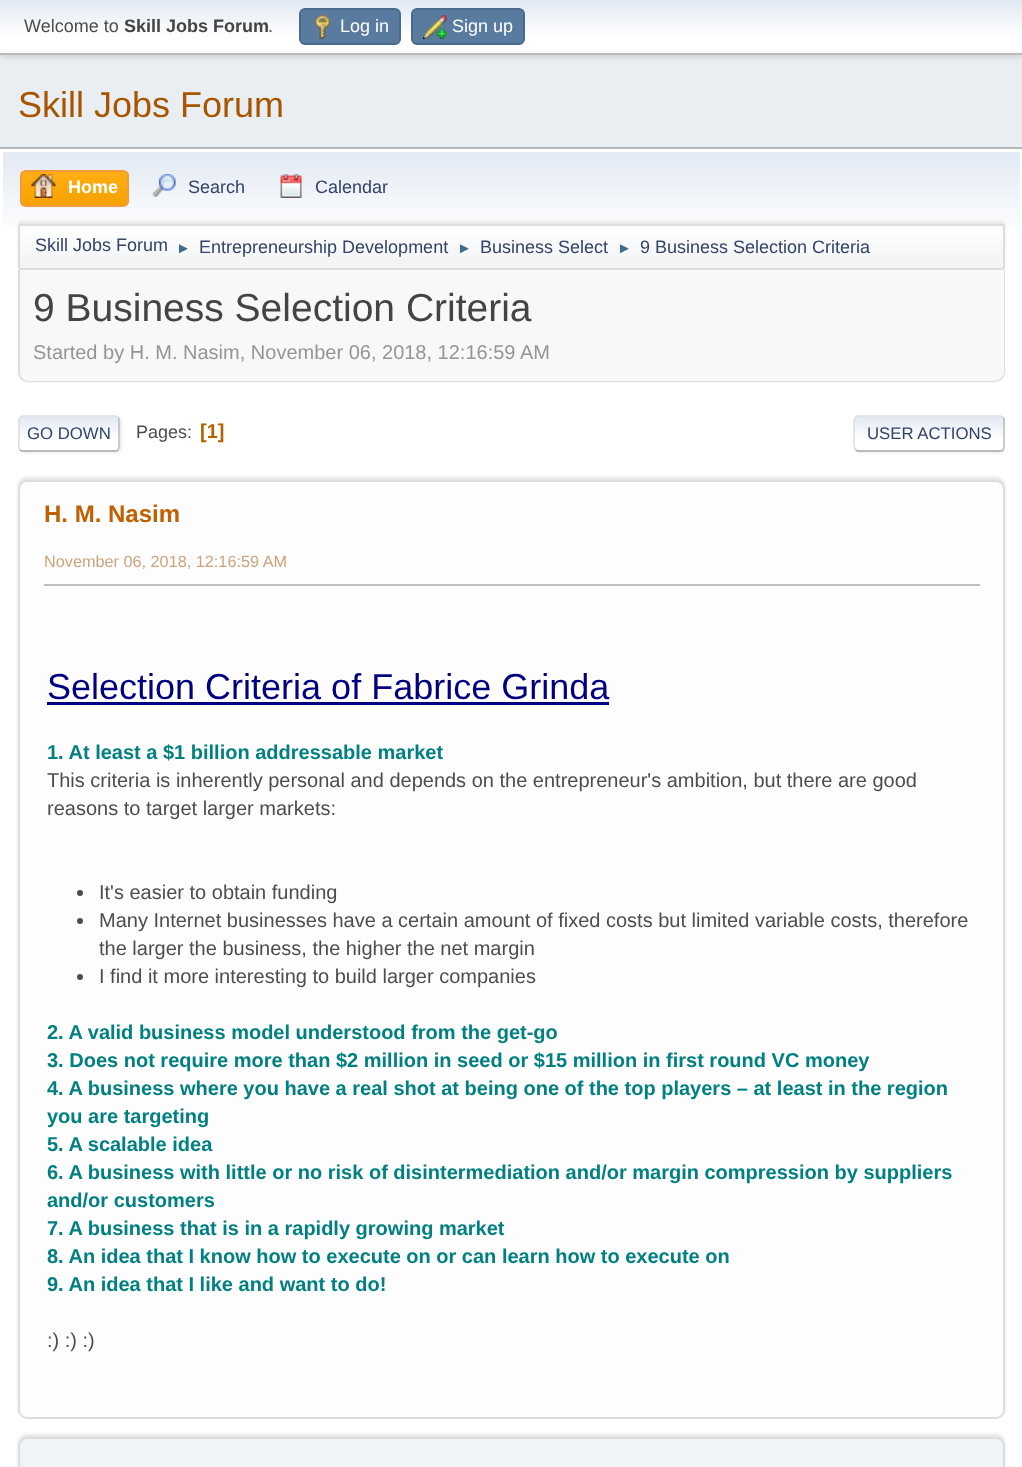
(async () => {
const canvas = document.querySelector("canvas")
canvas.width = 1022
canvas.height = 1467
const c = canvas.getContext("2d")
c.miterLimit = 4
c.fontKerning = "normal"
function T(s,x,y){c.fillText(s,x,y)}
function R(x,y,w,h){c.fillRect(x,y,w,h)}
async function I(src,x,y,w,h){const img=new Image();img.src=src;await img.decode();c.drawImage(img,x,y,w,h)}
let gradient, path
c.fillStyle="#e9eef2"
R(0,0,1022,1467)
c.fillStyle="#00000029"
c.filter="blur(3px)"
c.beginPath()
c.rect(0,2,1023,54)
c.fill()
c.filter="none"
gradient = c.createLinearGradient(512,0,512,53)
gradient.addColorStop(0,"#e2e9f3")
gradient.addColorStop(.7,"#fff")
c.fillStyle = gradient
R(0,0,1022,53)
c.fillStyle="#bbb"
R(0,53,1022,2)
c.font="18px Liberation Sans"
c.fillStyle="#4d4d4d"
T("Welcome to",24,32)
c.font="bold 18px Liberation Sans"
c.fillStyle="#444"
T("Skill Jobs Forum",124,32)
c.font="18px Liberation Sans"
c.fillStyle="#4d4d4d"
T(".",268,32)
c.fillStyle="#597b9f"
c.beginPath()
c.roundRect(300,9,100,35,5)
c.fill()
c.strokeStyle="#4a6b8c"
c.lineWidth=2
c.stroke()
await I("1.png",314,15,17,24)
c.fillStyle="#fff"
T("Log in",340,32)
c.fillStyle="#597b9f"
c.beginPath()
c.roundRect(412,9,112,35,5)
c.fill()
c.stroke()
await I("2.png",423,15,24,24)
c.fillStyle="#fff"
T("Sign up",452,32)
c.font="36px Liberation Sans"
c.fillStyle="#a85400"
T("Skill Jobs Forum",18,117)
c.fillStyle="#fff"
R(0,149,1022,1318)
c.fillStyle="#b8b8b8"
R(0,147,1022,2)
gradient = c.createLinearGradient(512,151,512,273)
gradient.addColorStop(0,"#e2e9f3")
gradient.addColorStop(.7,"#fff")
c.fillStyle = gradient
R(3,152,1017,77)
c.save()
c.beginPath()
c.roundRect(20,170,109,37,6)
c.clip()
gradient = c.createLinearGradient(74,171,74,206)
gradient.addColorStop(0,"#ffae14")
gradient.addColorStop(1,"#f5a100")
c.fillStyle = gradient
R(20,171,109,35)
c.restore()
c.beginPath()
c.roundRect(21,171,107,35,5)
c.strokeStyle="#f49a3a"
c.stroke()
await I("3.png",31,174,25,24)
c.font="bold 18px Liberation Sans"
c.fillStyle="#fff"
T("Home",68,193)
await I("4.png",152,174,24,23)
c.font="18px Liberation Sans"
c.fillStyle="#346"
T("Search",188,193)
await I("5.png",280,174,22,24)
T("Calendar",315,193)
c.fillStyle="#00000014"
c.filter="blur(1.5px)"
c.beginPath()
c.roundRect(18,221,987,46,3)
c.fill()
c.filter="none"
c.save()
c.beginPath()
c.roundRect(18,224,987,46,3)
c.clip()
gradient = c.createLinearGradient(512,225,512,269)
gradient.addColorStop(0,"#fff")
gradient.addColorStop(.95,"#f1f3f5")
c.fillStyle = gradient
R(18,225,987,44)
c.restore()
c.beginPath()
c.roundRect(19,225,985,44,2)
c.strokeStyle="#ddd"
c.stroke()
c.fillStyle="#346"
T("Skill Jobs Forum",35,251)
c.font="15px Liberation Sans"
c.fillStyle="#3f6b8c"
T("►",176,253)
c.font="18px Liberation Sans"
c.fillStyle="#346"
T("Entrepreneurship Development",199,253)
c.font="15px Liberation Sans"
c.fillStyle="#3f6b8c"
T("►",457,253)
c.font="18px Liberation Sans"
c.fillStyle="#346"
T("Business Select",480,253)
c.font="15px Liberation Sans"
c.fillStyle="#3f6b8c"
T("►",617,253)
c.font="18px Liberation Sans"
c.fillStyle="#346"
T("9 Business Selection Criteria",640,253)
c.fillStyle="#f8f8f8"
c.beginPath()
c.roundRect(18,270,987,113,[0,0,11,11])
c.fill()
c.fillStyle="#ddd"
path = new Path2D("M18 270h987v102c0 6-5 10-11 10h-966c-5 0-10-4-10-10zm2 0h984v102c0 5-5 9-10 9h-966c-4 0-8-4-8-9z")
c.fill(path,"evenodd")
c.font="39px Liberation Sans"
c.fillStyle="#444"
T("9 Business Selection Criteria",33,321)
c.font="20px Liberation Sans"
c.fillStyle="#959595"
T("Started by H. M. Nasim, November 06, 2018, 12:16:59 AM",33,359)
c.fillStyle="#dddddd91"
c.filter="blur(1px)"
c.beginPath()
c.roundRect(20,417,102,36,5)
c.fill()
c.filter="none"
c.save()
c.beginPath()
c.roundRect(18,416,102,36,5)
c.clip()
gradient = c.createLinearGradient(69,417,69,450)
gradient.addColorStop(0,"#e2e9f3")
gradient.addColorStop(.7,"#fff")
c.fillStyle = gradient
R(18,417,102,33)
gradient = c.createLinearGradient(69,450,69,483)
gradient.addColorStop(0,"#e2e9f3")
gradient.addColorStop(.7,"#fff")
c.fillStyle = gradient
R(18,450,102,2)
c.restore()
path = new Path2D("M118 417.5c1 .5 1 1.5 1 2.5v27c0 1 0 2-1 2.5")
c.strokeStyle="#bbb"
c.lineWidth=1.5
c.stroke(path)
path = new Path2D("M118 449.5c-.5 1-1.5 1.5-2.5 1.5h-93c-1 0-2-.5-2.5-1.5")
c.strokeStyle="#aaa"
c.stroke(path)
c.save()
c.beginPath()
c.rect(18,405,987,57)
c.clip()
path = new Path2D("M20 449.5c-2.5-2.5-1-8.5-1-11.5v-13.5c0-3-1-8 3.5-8.5h93l2.5 1.5")
c.strokeStyle="#ddd"
c.stroke(path)
c.restore()
c.font="16.75px Liberation Sans"
c.fillStyle="#346"
T("GO DOWN",27,439)
c.font="18px Liberation Sans"
c.fillStyle="#4d4d4d"
T("Pages:",136,438)
c.font="bold 20px Liberation Sans"
c.fillStyle="#b46100"
T("[1]",200,438)
c.save()
c.beginPath()
c.rect(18,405,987,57)
c.clip()
c.fillStyle="#dddddd91"
c.filter="blur(1px)"
c.beginPath()
c.roundRect(855,417,152,36,5)
c.fill()
c.filter="none"
c.restore()
c.save()
c.beginPath()
c.roundRect(854,416,151,36,5)
c.clip()
gradient = c.createLinearGradient(929,417,929,450)
gradient.addColorStop(0,"#e2e9f3")
gradient.addColorStop(.7,"#fff")
c.fillStyle = gradient
R(854,417,151,33)
gradient = c.createLinearGradient(929,450,929,483)
gradient.addColorStop(0,"#e2e9f3")
gradient.addColorStop(.7,"#fff")
c.fillStyle = gradient
R(854,450,151,2)
c.restore()
path = new Path2D("M1003 417.5c1 .5 1 1.5 1 2.5v27c0 1 0 2-1 2.5")
c.strokeStyle="#bbb"
c.stroke(path)
path = new Path2D("M1003 449.5c-.5 1-1.5 1.5-2.5 1.5h-142.5c-1 0-2-.5-2.5-1.5")
c.strokeStyle="#aaa"
c.stroke(path)
path = new Path2D("M855.5 449.5c-2.5-2-1.5-13-1.5-16v-9c0-3-.5-8 4-8.5h142.5l2.5 1.5")
c.strokeStyle="#ddd"
c.stroke(path)
c.font="16.75px Liberation Sans"
c.fillStyle="#346"
T("USER ACTIONS",867,439)
c.fillStyle="#0000001a"
c.filter="blur(1.5px)"
c.beginPath()
c.roundRect(18,477,987,939,9)
c.fill()
c.filter="none"
c.fillStyle="#fdfdfd"
c.beginPath()
c.roundRect(19,481,985,937,8)
c.fill()
c.lineWidth=2
c.stroke()
c.font="bold 24px Liberation Sans"
c.fillStyle="#c06002"
T("H. M. Nasim",44,522)
c.font="16.25px Liberation Sans"
c.fillStyle="#cda47b"
T("November 06, 2018, 12:16:59 AM",44,567)
c.fillStyle="#bfbfbf"
R(44,584,936,2)
c.font="36px Liberation Sans"
c.fillStyle="#000080"
T("Selection Criteria of Fabrice Grinda",47,699)
R(47,702,562,3)
c.font="bold 20px Liberation Sans"
c.fillStyle="#008080"
T("1. At least a $1 billion addressable market",47,759)
c.font="20px Liberation Sans"
c.fillStyle="#4d4d4d"
T("This criteria is inherently personal and depends on the entrepreneur's ambition, but there are good",47,787)
T("reasons to target larger markets:",47,815)
c.beginPath()
c.arc(80,893,3,0,7)
c.fill()
T("It's easier to obtain funding",99,899)
c.beginPath()
c.arc(80,921,3,0,7)
c.fill()
T("Many Internet businesses have a certain amount of fixed costs but limited variable costs, therefore",99,927)
T("the larger the business, the higher the net margin",99,955)
c.beginPath()
c.arc(80,977,3,0,7)
c.fill()
T("I find it more interesting to build larger companies",99,983)
c.font="bold 20px Liberation Sans"
c.fillStyle="#008080"
T("2. A valid business model understood from the get-go",47,1039)
T("3. Does not require more than $2 million in seed or $15 million in first round VC money",47,1067)
T("4. A business where you have a real shot at being one of the top players – at least in the region",47,1095)
T("you are targeting",47,1123)
T("5. A scalable idea",47,1151)
T("6. A business with little or no risk of disintermediation and/or margin compression by suppliers",47,1179)
T("and/or customers",47,1207)
T("7. A business that is in a rapidly growing market",47,1235)
T("8. An idea that I know how to execute on or can learn how to execute on",47,1263)
T("9. An idea that I like and want to do!",47,1291)
c.font="20px Liberation Sans"
c.fillStyle="#4d4d4d"
T(":) :) :)",47,1347)
c.fillStyle="#0000001a"
c.filter="blur(1.5px)"
c.beginPath()
c.roundRect(18,1434,987,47,9)
c.fill()
c.filter="none"
c.fillStyle="#f0f4f7"
c.beginPath()
c.roundRect(19,1438,985,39,8)
c.fill()
c.stroke()
})()
